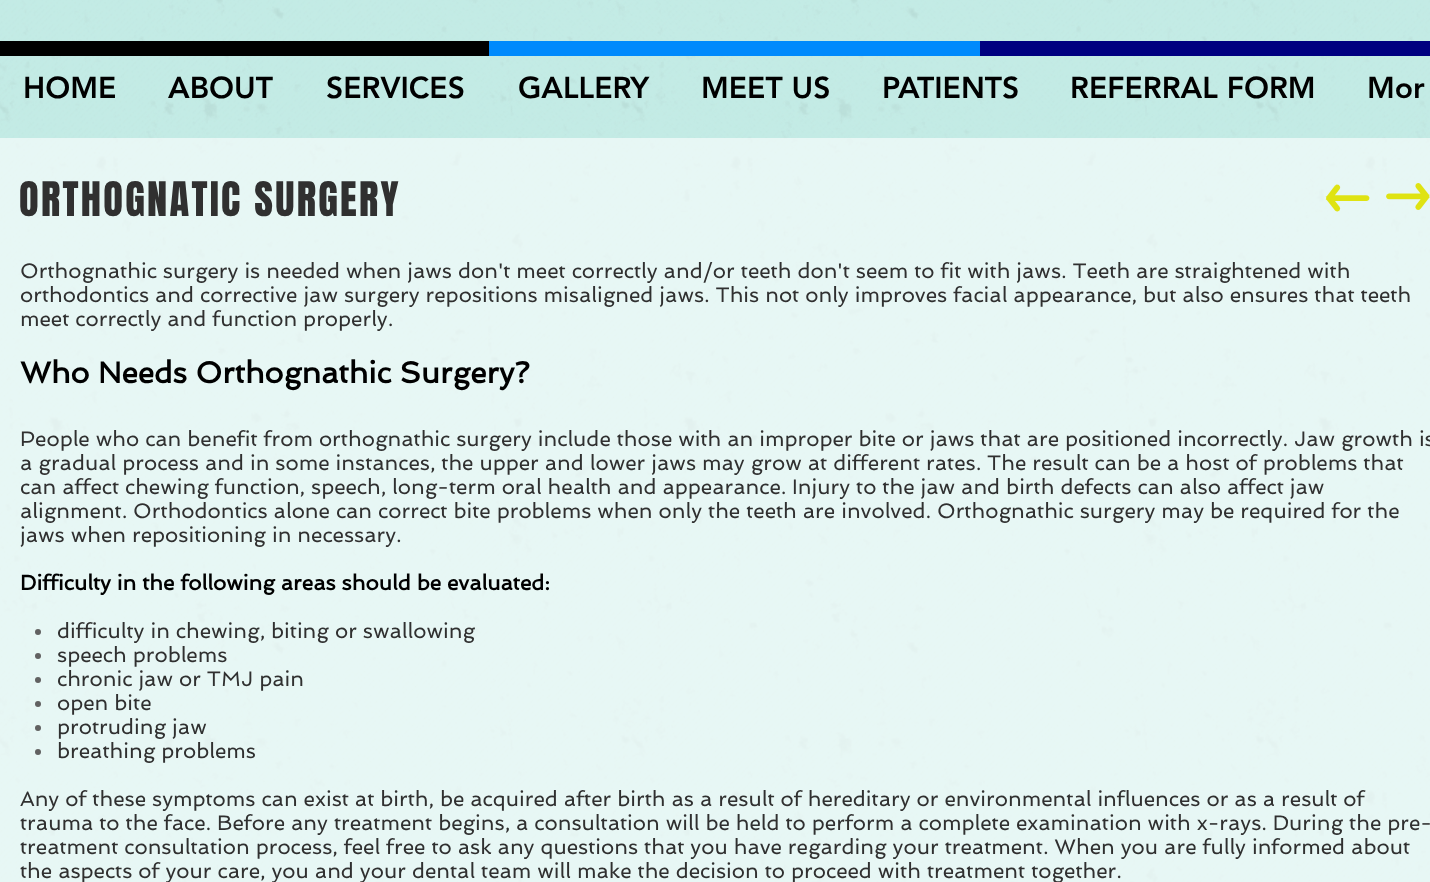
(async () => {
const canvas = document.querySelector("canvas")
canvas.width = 1430
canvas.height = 882
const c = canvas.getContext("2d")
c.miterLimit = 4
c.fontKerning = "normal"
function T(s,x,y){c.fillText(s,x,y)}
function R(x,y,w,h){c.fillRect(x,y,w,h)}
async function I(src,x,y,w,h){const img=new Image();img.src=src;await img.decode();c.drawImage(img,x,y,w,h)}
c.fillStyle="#c3ebe5"
R(0,0,1430,882)
await I("1.png",0,0,1430,882)
c.fillStyle="#000"
R(0,41,489,15)
c.fillStyle="#008afc"
R(489,41,491,15)
c.fillStyle="#000080"
R(980,41,450,15)
c.font="900 30px 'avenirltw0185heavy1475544'"
c.fillStyle="#000"
T("HOME",23,98)
T("ABOUT",168,98)
T("SERVICES",326,98)
T("GALLERY",518,98)
T("MEET US",701,98)
T("PATIENTS",882,98)
T("REFERRAL FORM",1070,98)
T("Mor",1367,98)
c.fillStyle="#ffffff99"
R(0,138,1430,744)
c.letterSpacing="2.25px"
c.font="40.5px Anton"
c.fillStyle="#303030"
T("ORTHOGNATIC SURGERY",19,216)
await I("2.png",1325,184,45,28)
await I("3.png",1386,183,44,27)
c.letterSpacing="0px"
c.font="21px Spinnaker"
T("Orthognathic surgery is needed when jaws don't meet correctly and/or teeth don't seem to fit with jaws. Teeth are straightened with",20,278)
T("orthodontics and corrective jaw surgery repositions misaligned jaws. This not only improves facial appearance, but also ensures that teeth",20,302)
T("meet correctly and function properly.",20,326)
c.font="bold 30px Spinnaker"
c.fillStyle="#000"
T("Who Needs Orthognathic Surgery?",20,383)
c.font="21px Spinnaker"
c.fillStyle="#303030"
T("People who can benefit from orthognathic surgery include those with an improper bite or jaws that are positioned incorrectly. Jaw growth is",20,446)
T("a gradual process and in some instances, the upper and lower jaws may grow at different rates. The result can be a host of problems that",20,470)
T("can affect chewing function, speech, long-term oral health and appearance. Injury to the jaw and birth defects can also affect jaw",20,494)
T("alignment. Orthodontics alone can correct bite problems when only the teeth are involved. Orthognathic surgery may be required for the",20,518)
T("jaws when repositioning in necessary.",20,542)
c.font="bold 21px Spinnaker"
c.fillStyle="#000"
T("Difficulty in the following areas should be evaluated:",20,590)
c.fillStyle="#616161"
c.beginPath()
c.arc(38,632,3,0,7)
c.fill()
c.font="21px Spinnaker"
c.fillStyle="#303030"
T("difficulty in chewing, biting or swallowing",57,638)
c.fillStyle="#616161"
c.beginPath()
c.arc(38,656,3,0,7)
c.fill()
c.fillStyle="#303030"
T("speech problems",57,662)
c.fillStyle="#616161"
c.beginPath()
c.arc(38,680,3,0,7)
c.fill()
c.fillStyle="#303030"
T("chronic jaw or TMJ pain",57,686)
c.fillStyle="#616161"
c.beginPath()
c.arc(38,704,3,0,7)
c.fill()
c.fillStyle="#303030"
T("open bite",57,710)
c.fillStyle="#616161"
c.beginPath()
c.arc(38,728,3,0,7)
c.fill()
c.fillStyle="#303030"
T("protruding jaw",57,734)
c.fillStyle="#616161"
c.beginPath()
c.arc(38,752,3,0,7)
c.fill()
c.fillStyle="#303030"
T("breathing problems",57,758)
T("Any of these symptoms can exist at birth, be acquired after birth as a result of hereditary or environmental influences or as a result of",20,806)
T("trauma to the face. Before any treatment begins, a consultation will be held to perform a complete examination with x-rays. During the pre-",20,830)
T("treatment consultation process, feel free to ask any questions that you have regarding your treatment. When you are fully informed about",20,854)
T("the aspects of your care, you and your dental team will make the decision to proceed with treatment together.",20,878)
})()
